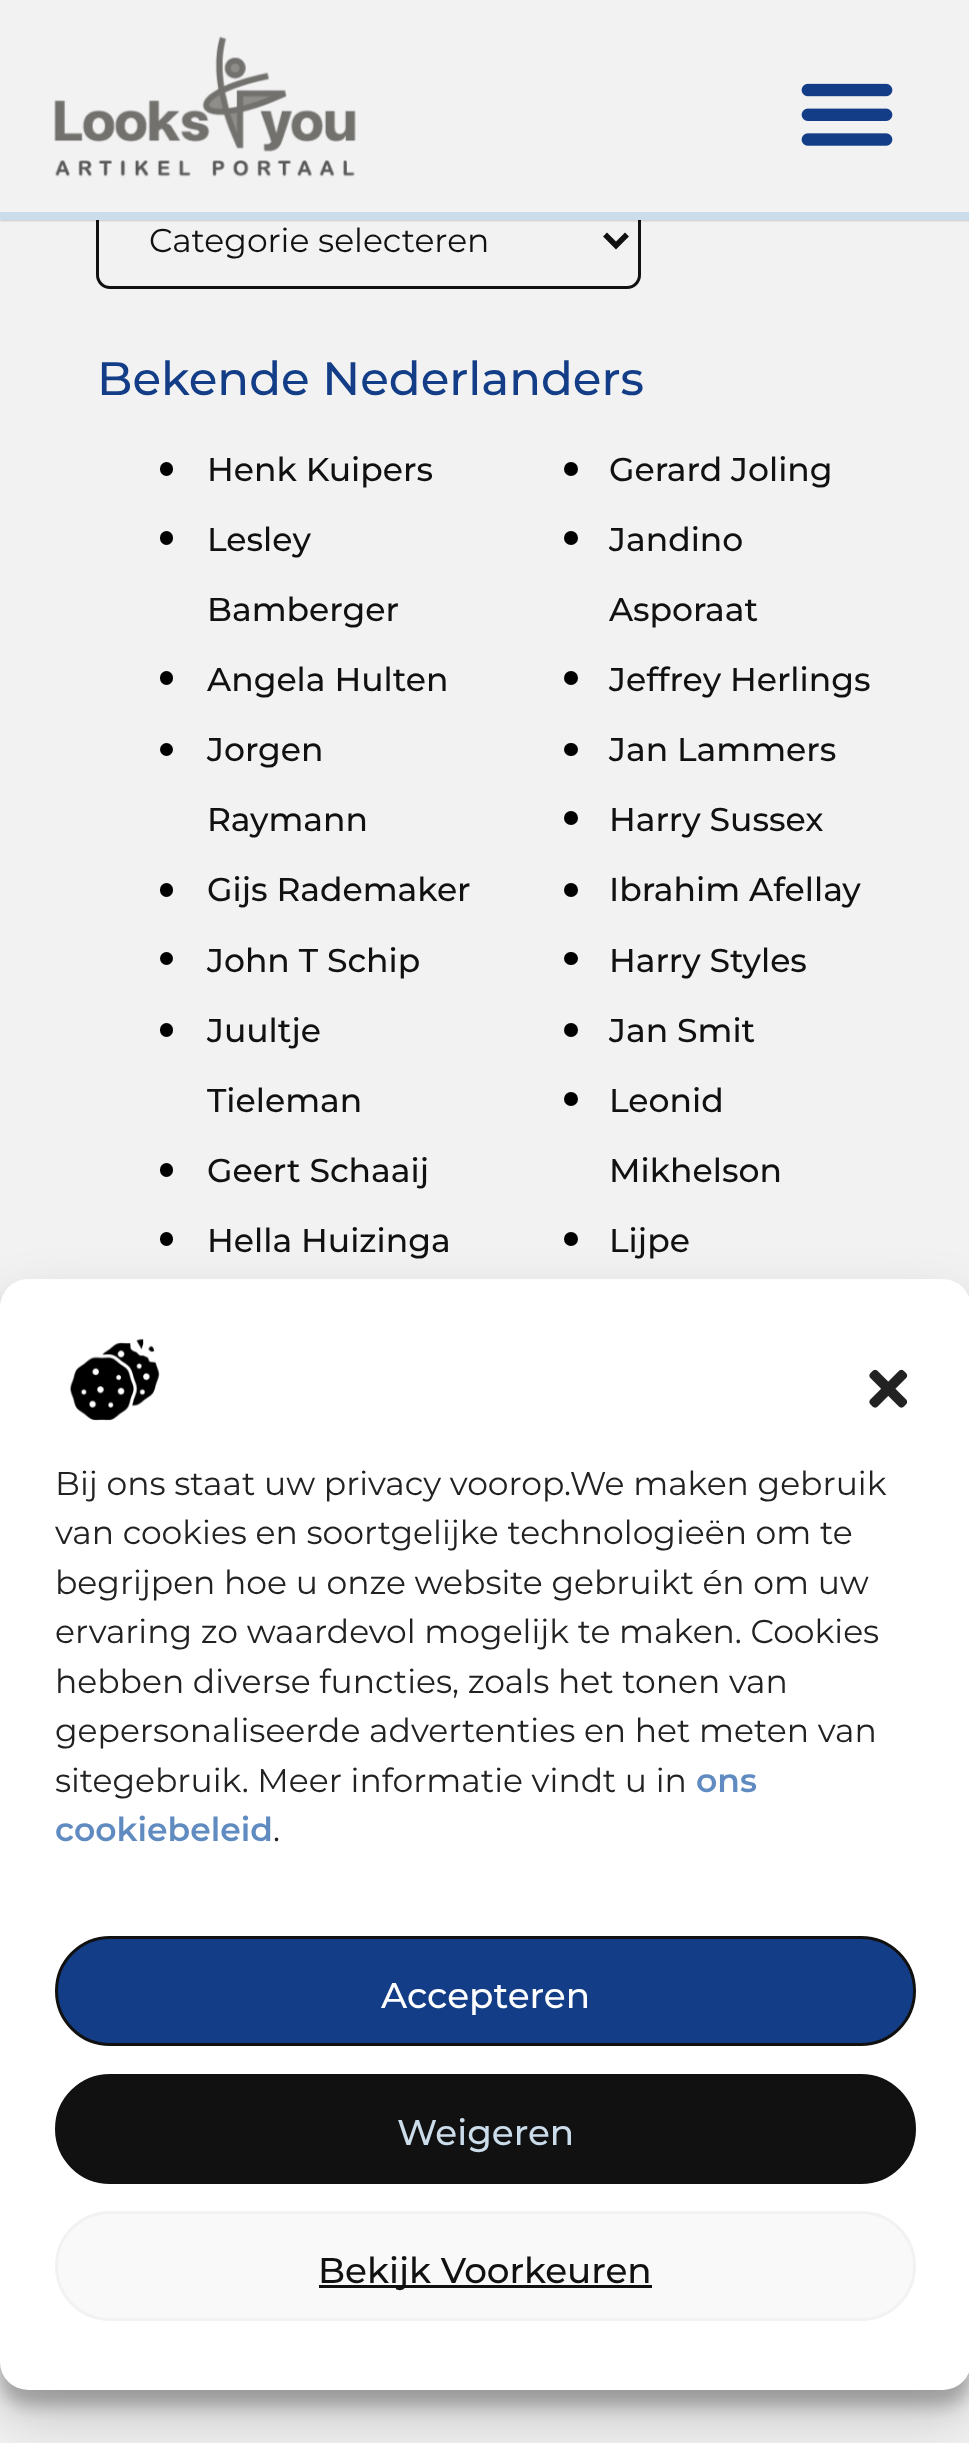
(async () => {
const canvas = document.querySelector("canvas")
canvas.width = 969
canvas.height = 2443
const c = canvas.getContext("2d")
c.miterLimit = 4
c.fontKerning = "normal"
function T(s,x,y){c.fillText(s,x,y)}
function R(x,y,w,h){c.fillRect(x,y,w,h)}
function Q(x,y,w,h,r){c.beginPath();c.roundRect(x,y,w,h,r);c.fill()}
async function I(src,x,y,w,h){const img=new Image();img.src=src;await img.decode();c.drawImage(img,x,y,w,h)}
let path
c.fillStyle="#f2f2f2"
R(0,0,969,2443)
c.beginPath()
c.roundRect(97.5,194.5,542,93,12.5)
c.strokeStyle="#111"
c.lineWidth=3
c.stroke()
c.fillStyle="#00000054"
c.filter="blur(1.5px)"
c.beginPath()
c.rect(0,0,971,220)
c.fill()
c.filter="none"
c.fillStyle="#f2f2f2"
R(0,0,969,212)
c.fillStyle="#cbdceb"
R(0,212,969,8)
await I("1.png",54,36,302,141)
await I("2.png",801,83,92,63)
path = new Path2D("M605 234.5l11 11l11-11")
c.lineWidth=5.5
c.stroke(path)
c.font="33px Montserrat"
c.fillStyle="#111"
T("Categorie selecteren",149,252)
c.font="500 46.75px Montserrat"
c.fillStyle="#133e87"
T("Bekende Nederlanders",97,395)
c.fillStyle="#000"
Q(160,462,13,14,6.5)
c.font="500 33px Montserrat"
c.fillStyle="#111"
T("Henk Kuipers",207,481)
c.fillStyle="#000"
c.beginPath()
c.arc(571,469,7,0,7)
c.fill()
c.fillStyle="#111"
T("Gerard Joling",609,481)
c.fillStyle="#000"
Q(160,531,13,14,6.5)
c.fillStyle="#111"
T("Lesley",207,551)
T("Bamberger",207,621)
c.fillStyle="#000"
c.beginPath()
c.arc(571,538,7,0,7)
c.fill()
c.fillStyle="#111"
T("Jandino",609,551)
T("Asporaat",609,621)
c.fillStyle="#000"
Q(160,671,13,14,6.5)
c.fillStyle="#111"
T("Angela Hulten",207,691)
c.fillStyle="#000"
c.beginPath()
c.arc(571,678,7,0,7)
c.fill()
c.fillStyle="#111"
T("Jeffrey Herlings",609,691)
c.fillStyle="#000"
c.beginPath()
c.arc(166.5,749.5,6.5,0,7)
c.fill()
c.fillStyle="#111"
T("Jorgen",207,761)
T("Raymann",207,831)
c.fillStyle="#000"
Q(564,743,14,13,6.5)
c.fillStyle="#111"
T("Jan Lammers",609,761)
c.fillStyle="#000"
c.beginPath()
c.arc(571,818,7,0,7)
c.fill()
c.fillStyle="#111"
T("Harry Sussex",609,831)
c.fillStyle="#000"
Q(160,883,13,14,6.5)
c.fillStyle="#111"
T("Gijs Rademaker",207,901)
c.fillStyle="#000"
c.beginPath()
c.arc(571,890,7,0,7)
c.fill()
c.fillStyle="#111"
T("Ibrahim Afellay",609,901)
c.fillStyle="#000"
c.beginPath()
c.arc(166.5,958.5,6.5,0,7)
c.fill()
c.fillStyle="#111"
T("John T Schip",207,972)
c.fillStyle="#000"
Q(564,952,14,13,6.5)
c.fillStyle="#111"
T("Harry Styles",609,972)
c.fillStyle="#000"
Q(160,1023,13,14,6.5)
c.fillStyle="#111"
T("Juultje",207,1042)
T("Tieleman",207,1112)
c.fillStyle="#000"
c.beginPath()
c.arc(571,1030,7,0,7)
c.fill()
c.fillStyle="#111"
T("Jan Smit",609,1042)
c.fillStyle="#000"
Q(160,1163,13,14,6.5)
c.fillStyle="#111"
T("Geert Schaaij",207,1182)
c.fillStyle="#000"
c.beginPath()
c.arc(571,1099,7,0,7)
c.fill()
c.fillStyle="#111"
T("Leonid",609,1112)
T("Mikhelson",609,1182)
c.fillStyle="#000"
Q(160,1232,13,14,6.5)
c.fillStyle="#111"
T("Hella Huizinga",207,1252)
c.fillStyle="#000"
c.beginPath()
c.arc(571,1239,7,0,7)
c.fill()
c.fillStyle="#111"
T("Lijpe",609,1252)
c.fillStyle="#0000003b"
c.filter="blur(8px)"
c.beginPath()
c.roundRect(0,1295,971,1111,28)
c.fill()
c.filter="none"
c.fillStyle="#00000030"
c.filter="blur(27.5px)"
c.beginPath()
c.roundRect(0,1306,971,1111,28)
c.fill()
c.filter="none"
c.fillStyle="#fff"
Q(0,1279,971,1111,28)
await I("3.png",70,1338,90,83)
await I("4.png",869,1369,39,39)
c.font="33px Montserrat"
c.fillStyle="#222"
T("Bij ons staat uw privacy voorop.We maken gebruik",55,1495)
T("van cookies en soortgelijke technologieën om te",55,1544)
T("begrijpen hoe u onze website gebruikt én om uw",55,1594)
T("ervaring zo waardevol mogelijk te maken. Cookies",55,1643)
T("hebben diverse functies, zoals het tonen van",55,1693)
T("gepersonaliseerde advertenties en het meten van",55,1742)
T("sitegebruik. Meer informatie vindt u in",55,1792)
c.font="600 33px Montserrat"
c.fillStyle="#608bc1"
T("ons",696,1792)
T("cookiebeleid",55,1841)
c.font="33px Montserrat"
c.fillStyle="#222"
T(".",273,1841)
c.fillStyle="#133e87"
c.beginPath()
c.roundRect(56.5,1937.5,858,107,53.5)
c.fill()
c.lineWidth=3
c.stroke()
c.font="500 35.75px Montserrat"
c.fillStyle="#fff"
T("Accepteren",381,2008)
c.fillStyle="#111"
c.beginPath()
c.roundRect(56.5,2075.5,858,107,53.5)
c.fill()
c.stroke()
c.fillStyle="#cbdceb"
T("Weigeren",397,2145)
c.fillStyle="#f9f9f9"
c.beginPath()
c.roundRect(56.5,2212.5,858,107,53.5)
c.fill()
c.strokeStyle="#f2f2f2"
c.stroke()
c.fillStyle="#111"
R(319,2285,333,3)
T("Bekijk Voorkeuren",318,2283)
})()
